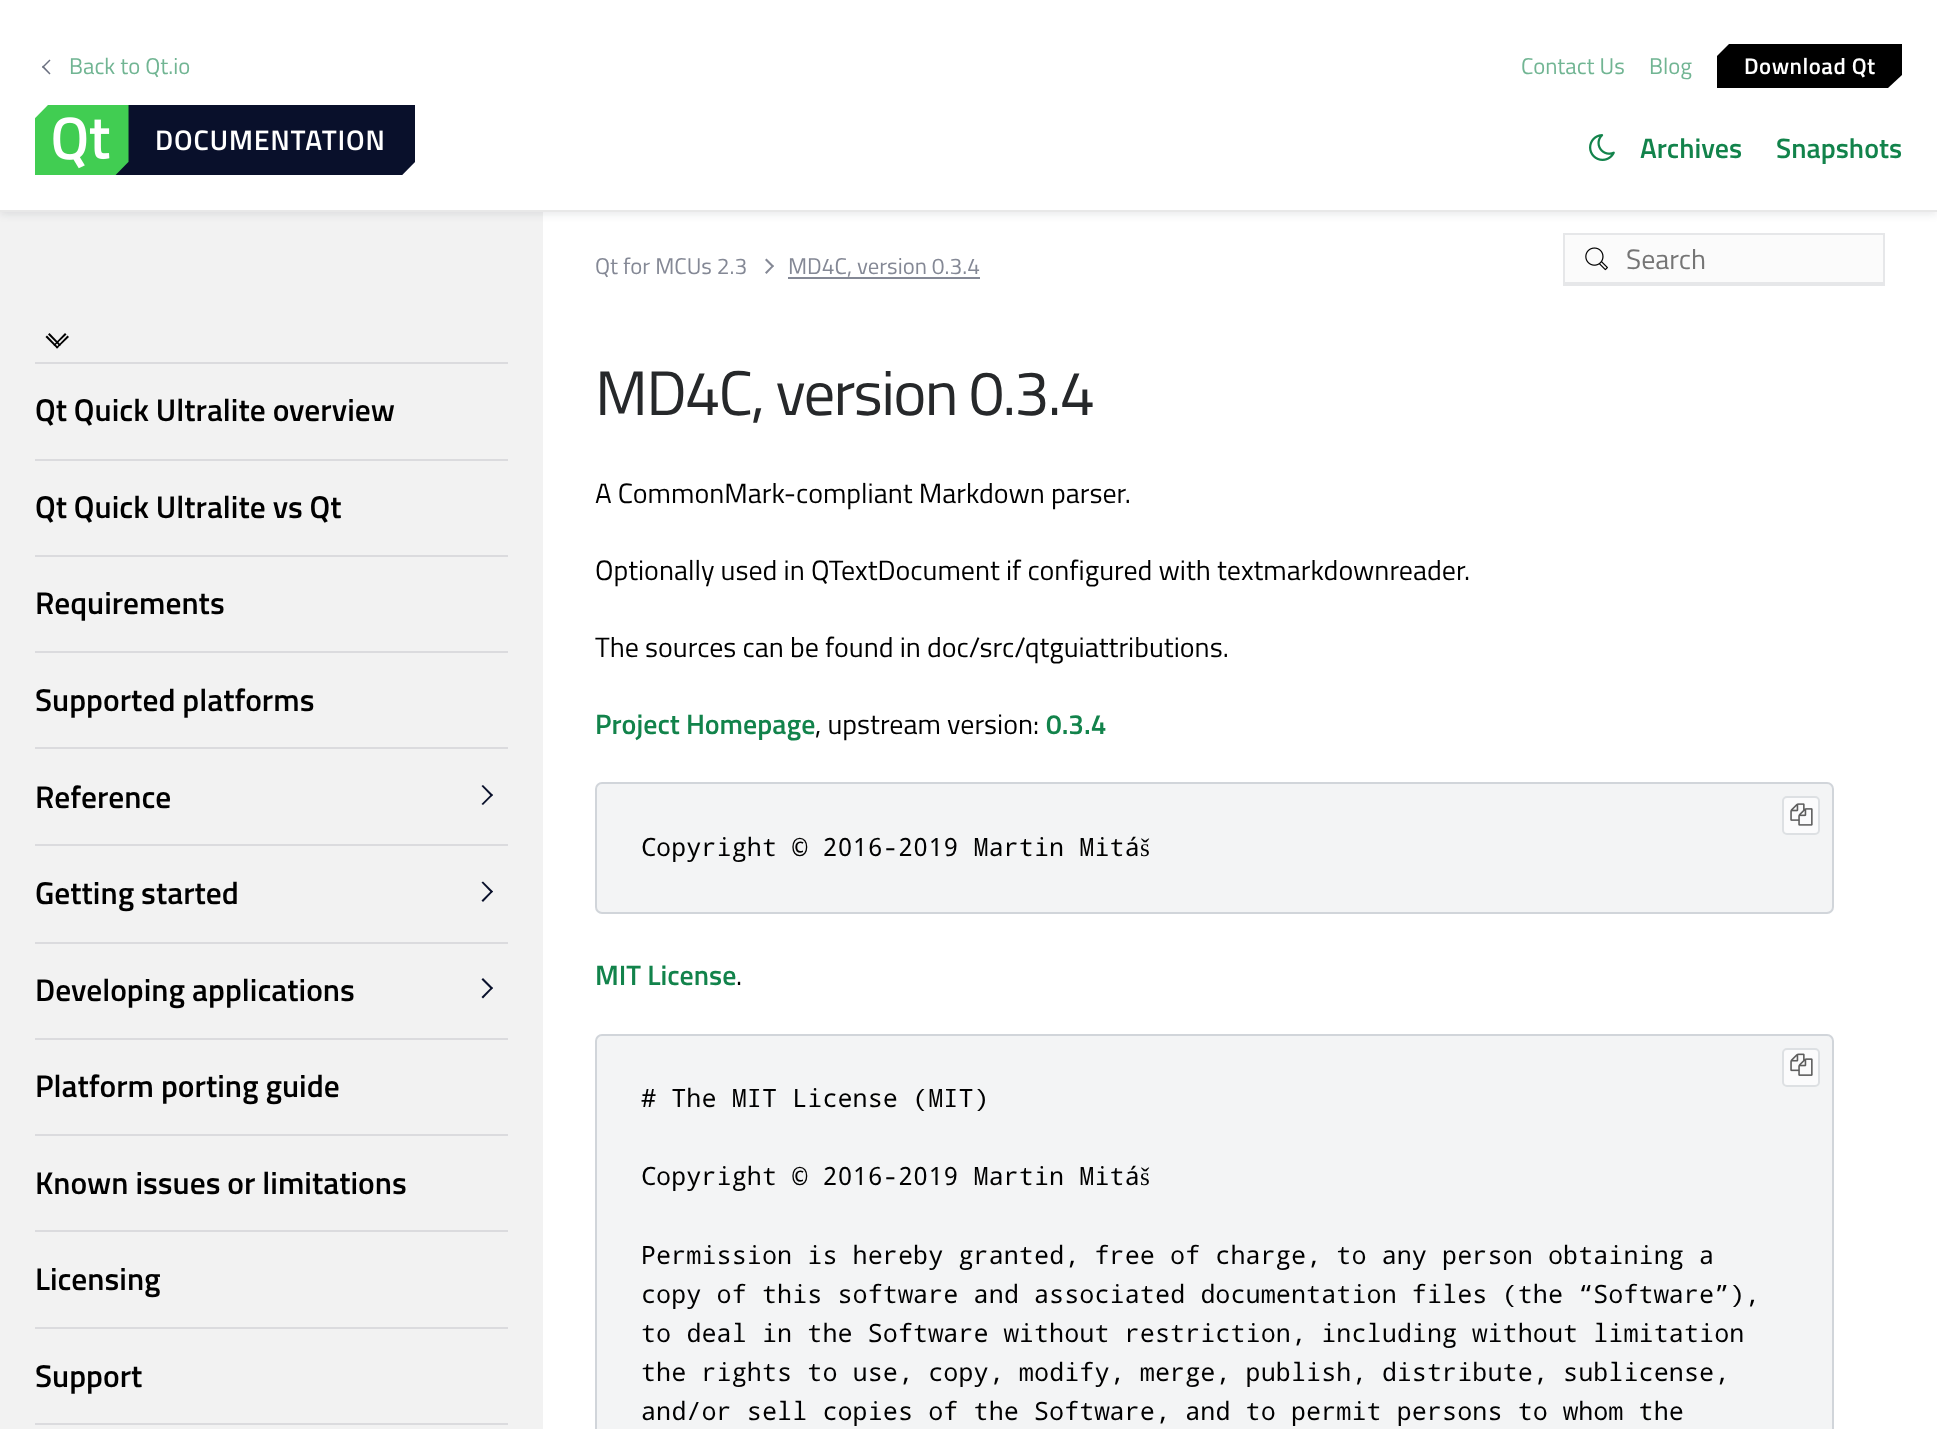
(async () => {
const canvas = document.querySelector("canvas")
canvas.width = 1937
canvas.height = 1429
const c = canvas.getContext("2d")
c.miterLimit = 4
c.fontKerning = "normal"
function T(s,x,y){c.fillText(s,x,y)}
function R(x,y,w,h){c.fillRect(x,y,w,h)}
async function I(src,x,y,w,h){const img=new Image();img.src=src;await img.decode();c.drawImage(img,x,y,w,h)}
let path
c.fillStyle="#fff"
R(0,0,1937,1429)
c.fillStyle="#f2f2f2"
R(0,212,543,1217)
c.fillStyle="#09102b1a"
c.filter="blur(4.5px)"
c.beginPath()
c.rect(0,2,1937,212)
c.fill()
c.filter="none"
c.fillStyle="#fff"
R(0,0,1937,210)
c.fillStyle="#e8e8e8"
R(0,210,1937,2)
c.fillStyle="#6b7080"
path = new Path2D("M50.5 73.5l-1 1l-7.5-7.5l1-1.5z")
c.fill(path)
path = new Path2D("M50.5 60.5l-7.5 7.5l-1-1l7.5-7.5z")
c.fill(path)
c.font="22.75px Titillium Web"
c.fillStyle="#71b593"
T("Back to Qt.io",69,74)
T("Contact Us",1521,74)
T("Blog",1649,74)
c.fillStyle="#000"
path = new Path2D("M1717 56l12-12h173v31l-14 13h-171z")
c.fill(path)
c.letterSpacing="0.5px"
c.font="600 22.75px Titillium Web"
c.fillStyle="#fff"
T("Download Qt",1744,74)
await I("1.png",35,105,380,70)
await I("2.png",1589,134,26,27)
c.letterSpacing="0px"
c.font="600 28px Titillium Web"
c.fillStyle="#12834b"
T("Archives",1640,158)
T("Snapshots",1776,158)
c.fillStyle="#000"
path = new Path2D("M65 333l1.5 1.5l-12 11.5l-1-1z")
c.fill(path)
path = new Path2D("M67.5 335.5l1.5 1.5l-12 11.5l-1-1z")
c.fill(path)
path = new Path2D("M49.5 333l11.5 12l-1.5 1l-11.5-11.5z")
c.fill(path)
path = new Path2D("M47 335.5l11.5 12l-1.5 1l-11.5-11.5z")
c.fill(path)
c.fillStyle="#dbdbde"
R(35,362,473,2)
c.font="600 31.5px Titillium Web"
c.fillStyle="#000"
T("Qt Quick Ultralite overview",35,421)
c.fillStyle="#dbdbde"
R(35,459,473,2)
c.fillStyle="#000"
T("Qt Quick Ultralite vs Qt",35,518)
c.fillStyle="#dbdbde"
R(35,555,473,2)
c.fillStyle="#000"
T("Requirements",35,614)
c.fillStyle="#dbdbde"
R(35,651,473,2)
c.fillStyle="#000"
T("Supported platforms",35,711)
c.fillStyle="#dbdbde"
R(35,747,473,2)
c.fillStyle="#000"
T("Reference",35,808)
c.fillStyle="#09102b"
path = new Path2D("M481.5 786l1.5-1l10 10l-1.5 1.5z")
c.fill(path)
path = new Path2D("M481.5 804l10-10l1.5 1l-10 10z")
c.fill(path)
c.fillStyle="#dbdbde"
R(35,844,473,2)
c.fillStyle="#000"
T("Getting started",35,904)
c.fillStyle="#09102b"
path = new Path2D("M481.5 882.5l1.5-1l10 10l-1.5 1.5z")
c.fill(path)
path = new Path2D("M481.5 900.5l10-10l1.5 1l-10 10.5z")
c.fill(path)
c.fillStyle="#dbdbde"
R(35,942,473,2)
c.fillStyle="#000"
T("Developing applications",35,1001)
c.fillStyle="#09102b"
path = new Path2D("M481.5 979.5l1.5-1.5l10 10l-1.5 1.5z")
c.fill(path)
path = new Path2D("M481.5 997l10-10l1.5 1l-10 10.5z")
c.fill(path)
c.fillStyle="#dbdbde"
R(35,1038,473,2)
c.fillStyle="#000"
T("Platform porting guide",35,1097)
c.fillStyle="#dbdbde"
R(35,1134,473,2)
c.fillStyle="#000"
T("Known issues or limitations",35,1194)
c.fillStyle="#dbdbde"
R(35,1230,473,2)
c.fillStyle="#000"
T("Licensing",35,1290)
c.fillStyle="#dbdbde"
R(35,1327,473,2)
R(35,1423,473,2)
c.fillStyle="#000"
T("Support",35,1387)
c.font="22.75px Titillium Web"
c.fillStyle="#848895"
T("Qt for MCUs 2.3",595,274)
path = new Path2D("M765 260l1.5-1.5l7.5 7.5l-1.5 1.5z")
c.fill(path)
path = new Path2D("M765 272.5l7.5-7.5l1.5 1l-7.5 8z")
c.fill(path)
T("MD4C, version 0.3.4",788,274)
R(788,277,192,2)
c.fillStyle="#fbfbfb"
R(1565,235,318,47)
await I("3.png",1585,247,23,24)
c.fillStyle="#e6e7e9"
R(1563,233,322,2)
R(1883,233,2,52)
R(1563,282,322,4)
R(1563,233,2,52)
c.font="28px Titillium Web"
c.fillStyle="#757575"
T("Search",1626,269)
c.letterSpacing="-1.75px"
c.font="63px Titillium Web"
c.fillStyle="#26282a"
T("MD4C, version 0.3.4",595,415)
c.letterSpacing="0px"
c.font="28px Titillium Web"
c.fillStyle="#000"
T("A CommonMark-compliant Markdown parser.",595,503)
T("Optionally used in QTextDocument if configured with textmarkdownreader.",595,580)
T("The sources can be found in doc/src/qtguiattributions.",595,657)
c.font="600 28px Titillium Web"
c.fillStyle="#12834b"
T("Project Homepage",595,734)
c.font="28px Titillium Web"
c.fillStyle="#000"
T(", upstream version:",815,734)
c.font="600 28px Titillium Web"
c.fillStyle="#12834b"
T("0.3.4",1046,734)
c.fillStyle="#f3f4f5"
c.beginPath()
c.roundRect(596,783,1237,130,6)
c.fill()
c.strokeStyle="#d1d5da"
c.lineWidth=2
c.stroke()
c.fillStyle="#fbfbfc"
c.beginPath()
c.roundRect(1783,797,36,37,4)
c.fill()
c.strokeStyle="#dde0e3"
c.stroke()
await I("4.png",1790,803,23,23)
c.font="25.2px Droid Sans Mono"
c.fillStyle="#000"
T("Copyright © 2016-2019 Martin Mitá",641,856)
c.font="25.2px Liberation Serif"
T("š",1140,856)
c.font="600 28px Titillium Web"
c.fillStyle="#12834b"
T("MIT License",595,985)
c.font="28px Titillium Web"
c.fillStyle="#000"
T(".",736,985)
c.fillStyle="#f3f4f5"
c.beginPath()
c.roundRect(596,1035,1237,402,6)
c.fill()
c.strokeStyle="#d1d5da"
c.stroke()
c.fillStyle="#fbfbfc"
c.beginPath()
c.roundRect(1783,1049,36,37,4)
c.fill()
c.strokeStyle="#dde0e3"
c.stroke()
await I("5.png",1790,1053,23,23)
c.font="25.2px Droid Sans Mono"
c.fillStyle="#000"
T("# The MIT License (MIT)",641,1107)
T("Copyright © 2016-2019 Martin Mitá",641,1185)
c.font="25.2px Liberation Serif"
T("š",1140,1185)
c.font="25.2px Droid Sans Mono"
T("Permission is hereby granted, free of charge, to any person obtaining a",641,1264)
T("copy of this software and associated documentation files (the “Software”),",641,1303)
T("to deal in the Software without restriction, including without limitation",641,1342)
T("the rights to use, copy, modify, merge, publish, distribute, sublicense,",641,1381)
T("and/or sell copies of the Software, and to permit persons to whom the",641,1420)
})()
